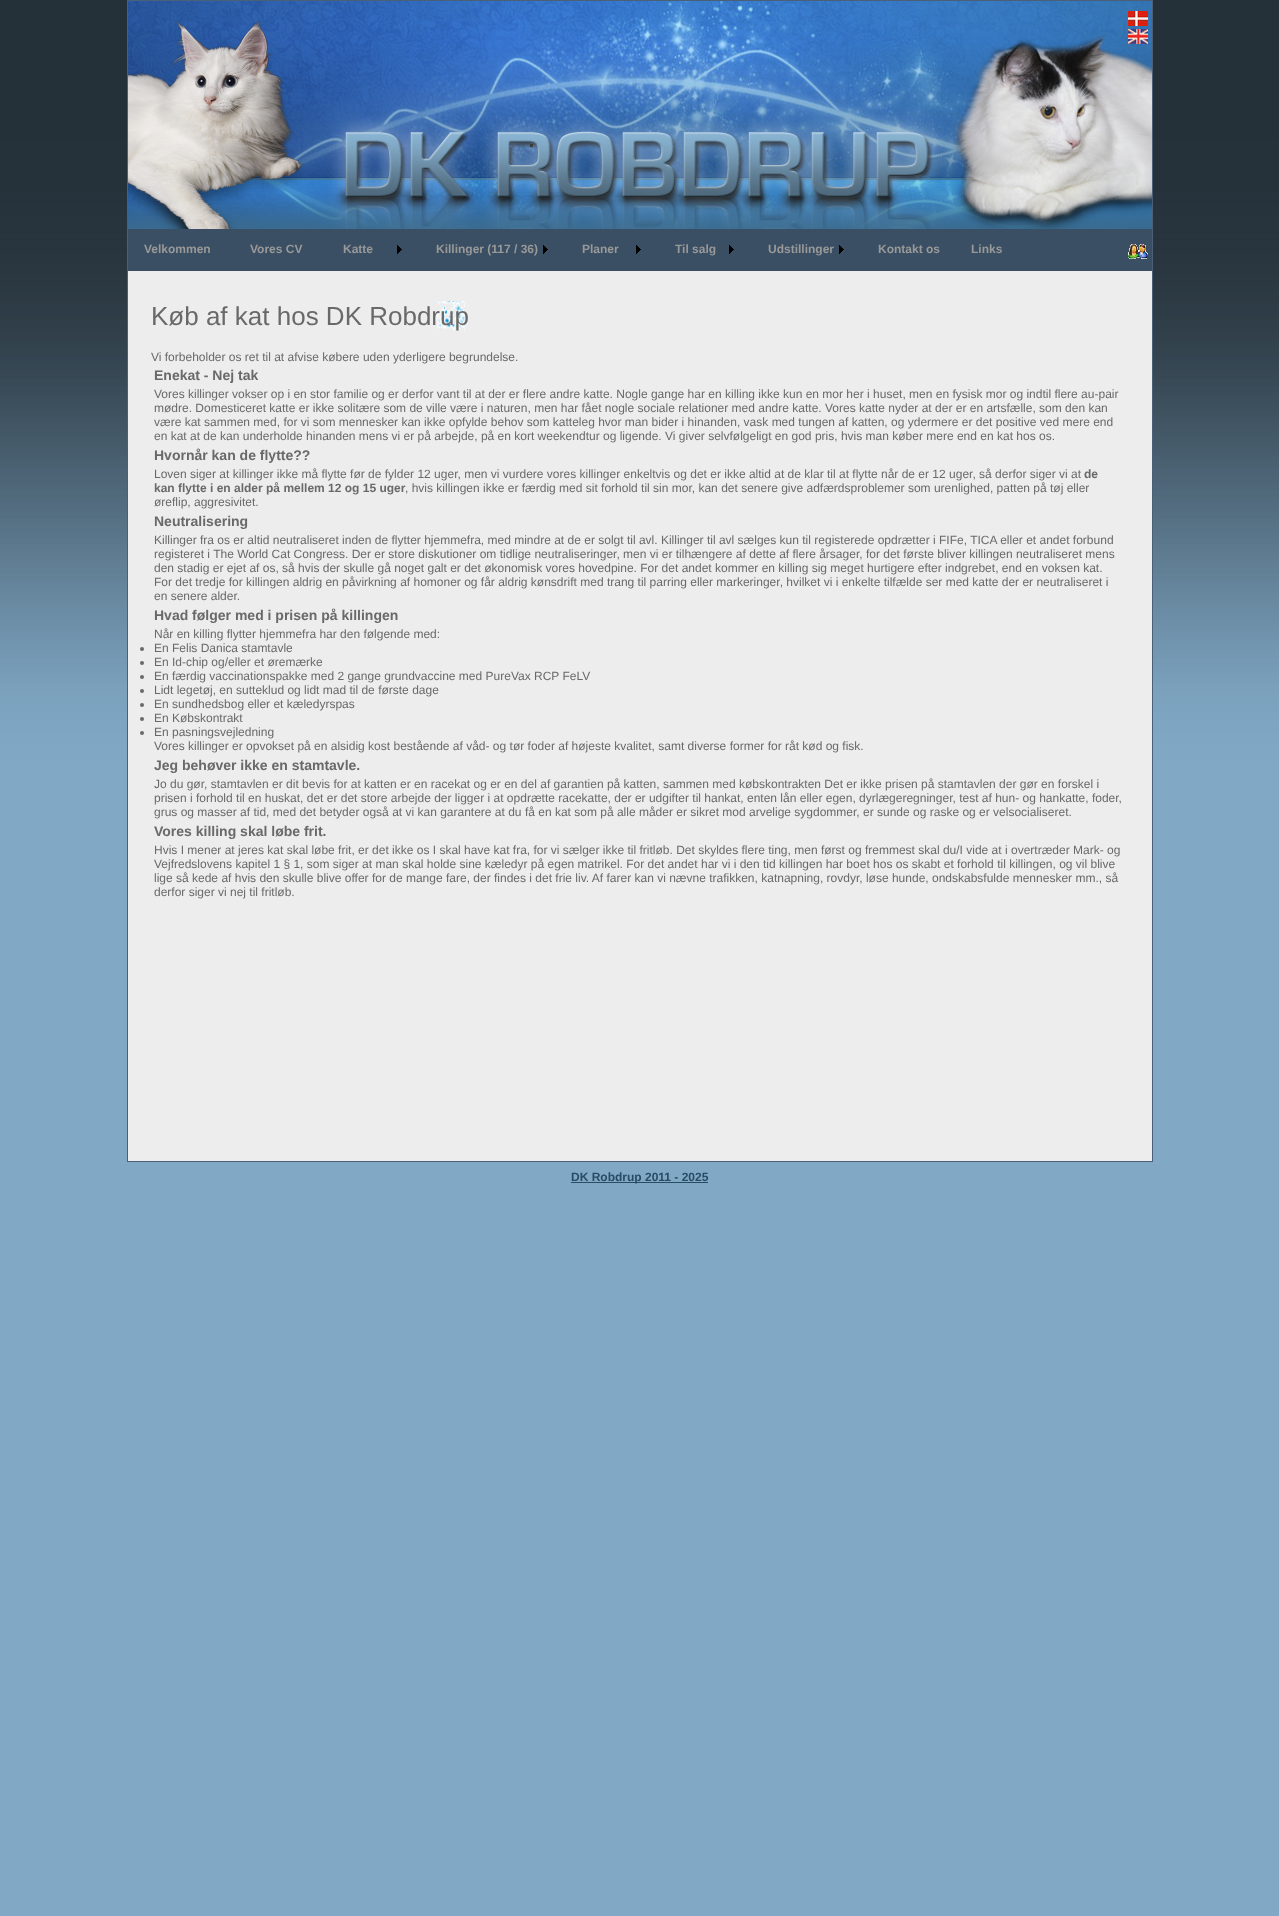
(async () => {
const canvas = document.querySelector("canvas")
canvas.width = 1279
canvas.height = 1916
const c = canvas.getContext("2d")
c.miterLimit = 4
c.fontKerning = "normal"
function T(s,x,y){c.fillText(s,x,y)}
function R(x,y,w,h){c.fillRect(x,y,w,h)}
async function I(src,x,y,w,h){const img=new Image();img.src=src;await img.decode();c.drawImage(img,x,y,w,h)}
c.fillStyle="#fff"
R(0,0,1279,1916)
await I("1.png",0,0,1279,1916)
c.fillStyle="#ededed"
R(128,271,1024,890)
c.strokeStyle="#496077"
c.strokeRect(127.5,.5,1025,1161)
await I("2.png",128,1,1024,228)
await I("3.png",1128,11,20,15)
await I("4.png",1128,29,20,15)
c.fillStyle="#3a4f63"
R(128,229,1024,42)
c.font="bold 12px Liberation Sans"
c.fillStyle="#999"
T("Velkommen",144,253)
T("Vores CV",250,253)
T("Katte",343,253)
await I("5.png",397,245,5,9)
T("Killinger (117 / 36)",436,253)
await I("5.png",543,245,5,9)
T("Planer",582,253)
await I("5.png",636,245,5,9)
T("Til salg",675,253)
await I("5.png",729,245,5,9)
T("Udstillinger",768,253)
await I("5.png",839,245,5,9)
T("Kontakt os",878,253)
T("Links",971,253)
await I("6.png",1128,244,20,15)
await I("7.png",435,301,33,30)
c.font="26px Liberation Sans"
c.fillStyle="#696969"
T("Køb af kat hos DK Robdrup",151,325)
c.font="12px Liberation Sans"
T("Vi forbeholder os ret til at afvise købere uden yderligere begrundelse.",151,361)
c.font="bold 14px Liberation Sans"
T("Enekat - Nej tak",154,380)
c.font="12px Liberation Sans"
T("Vores killinger vokser op i en stor familie og er derfor vant til at der er flere andre katte. Nogle gange har en killing ikke kun en mor her i huset, men en fysisk mor og indtil flere au-pair",154,398)
T("mødre. Domesticeret katte er ikke solitære som de ville være i naturen, men har fået nogle sociale relationer med andre katte. Vores katte nyder at der er en artsfælle, som den kan",154,412)
T("være kat sammen med, for vi som mennesker kan ikke opfylde behov som katteleg hvor man bider i hinanden, vask med tungen af katten, og ydermere er det positive ved mere end",154,426)
T("en kat at de kan underholde hinanden mens vi er på arbejde, på en kort weekendtur og ligende. Vi giver selvfølgeligt en god pris, hvis man køber mere end en kat hos os.",154,440)
c.font="bold 14px Liberation Sans"
T("Hvornår kan de flytte??",154,460)
c.font="12px Liberation Sans"
T("Loven siger at killinger ikke må flytte før de fylder 12 uger, men vi vurdere vores killinger enkeltvis og det er ikke altid at de klar til at flytte når de er 12 uger, så derfor siger vi at",154,478)
c.font="bold 12px Liberation Sans"
T("de",1084,478)
T("kan flytte i en alder på mellem 12 og 15 uger",154,492)
c.font="12px Liberation Sans"
T(", hvis killingen ikke er færdig med sit forhold til sin mor, kan det senere give adfærdsproblemer som urenlighed, patten på tøj eller",405,492)
T("øreflip, aggresivitet.",154,506)
c.font="bold 14px Liberation Sans"
T("Neutralisering",154,526)
c.font="12px Liberation Sans"
T("Killinger fra os er altid neutraliseret inden de flytter hjemmefra, med mindre at de er solgt til avl. Killinger til avl sælges kun til registerede opdrætter i FIFe, TICA eller et andet forbund",154,544)
T("registeret i The World Cat Congress. Der er store diskutioner om tidlige neutraliseringer, men vi er tilhængere af dette af flere årsager, for det første bliver killingen neutraliseret mens",154,558)
T("den stadig er ejet af os, så hvis der skulle gå noget galt er det økonomisk vores hovedpine. For det andet kommer en killing sig meget hurtigere efter indgrebet, end en voksen kat.",154,572)
T("For det tredje for killingen aldrig en påvirkning af homoner og får aldrig kønsdrift med trang til parring eller markeringer, hvilket vi i enkelte tilfælde ser med katte der er neutraliseret i",154,586)
T("en senere alder.",154,600)
c.font="bold 14px Liberation Sans"
T("Hvad følger med i prisen på killingen",154,620)
c.font="12px Liberation Sans"
T("Når en killing flytter hjemmefra har den følgende med:",154,638)
c.beginPath()
c.arc(142,649,2,0,7)
c.fill()
T("En Felis Danica stamtavle",154,652)
c.beginPath()
c.arc(142,663,2,0,7)
c.fill()
T("En Id-chip og/eller et øremærke",154,666)
c.beginPath()
c.arc(142,677,2,0,7)
c.fill()
T("En færdig vaccinationspakke med 2 gange grundvaccine med PureVax RCP FeLV",154,680)
c.beginPath()
c.arc(142,691,2,0,7)
c.fill()
T("Lidt legetøj, en sutteklud og lidt mad til de første dage",154,694)
c.beginPath()
c.arc(142,705,2,0,7)
c.fill()
T("En sundhedsbog eller et kæledyrspas",154,708)
c.beginPath()
c.arc(142,719,2,0,7)
c.fill()
T("En Købskontrakt",154,722)
c.beginPath()
c.arc(142,733,2,0,7)
c.fill()
T("En pasningsvejledning",154,736)
T("Vores killinger er opvokset på en alsidig kost bestående af våd- og tør foder af højeste kvalitet, samt diverse former for råt kød og fisk.",154,750)
c.font="bold 14px Liberation Sans"
T("Jeg behøver ikke en stamtavle.",154,770)
c.font="12px Liberation Sans"
T("Jo du gør, stamtavlen er dit bevis for at katten er en racekat og er en del af garantien på katten, sammen med købskontrakten Det er ikke prisen på stamtavlen der gør en forskel i",154,788)
T("prisen i forhold til en huskat, det er det store arbejde der ligger i at opdrætte racekatte, der er udgifter til hankat, enten lån eller egen, dyrlægeregninger, test af hun- og hankatte, foder,",154,802)
T("grus og masser af tid, med det betyder også at vi kan garantere at du få en kat som på alle måder er sikret mod arvelige sygdommer, er sunde og raske og er velsocialiseret.",154,816)
c.font="bold 14px Liberation Sans"
T("Vores killing skal løbe frit.",154,836)
c.font="12px Liberation Sans"
T("Hvis I mener at jeres kat skal løbe frit, er det ikke os I skal have kat fra, for vi sælger ikke til fritløb. Det skyldes flere ting, men først og fremmest skal du/I vide at i overtræder Mark- og",154,854)
T("Vejfredslovens kapitel 1 § 1, som siger at man skal holde sine kæledyr på egen matrikel. For det andet har vi i den tid killingen har boet hos os skabt et forhold til killingen, og vil blive",154,868)
T("lige så kede af hvis den skulle blive offer for de mange fare, der findes i det frie liv. Af farer kan vi nævne trafikken, katnapning, rovdyr, løse hunde, ondskabsfulde mennesker mm., så",154,882)
T("derfor siger vi nej til fritløb.",154,896)
c.fillStyle="#284c66"
R(571,1182,137,1)
c.font="bold 12px Liberation Sans"
T("DK Robdrup 2011 - 2025",571,1181)
})()
